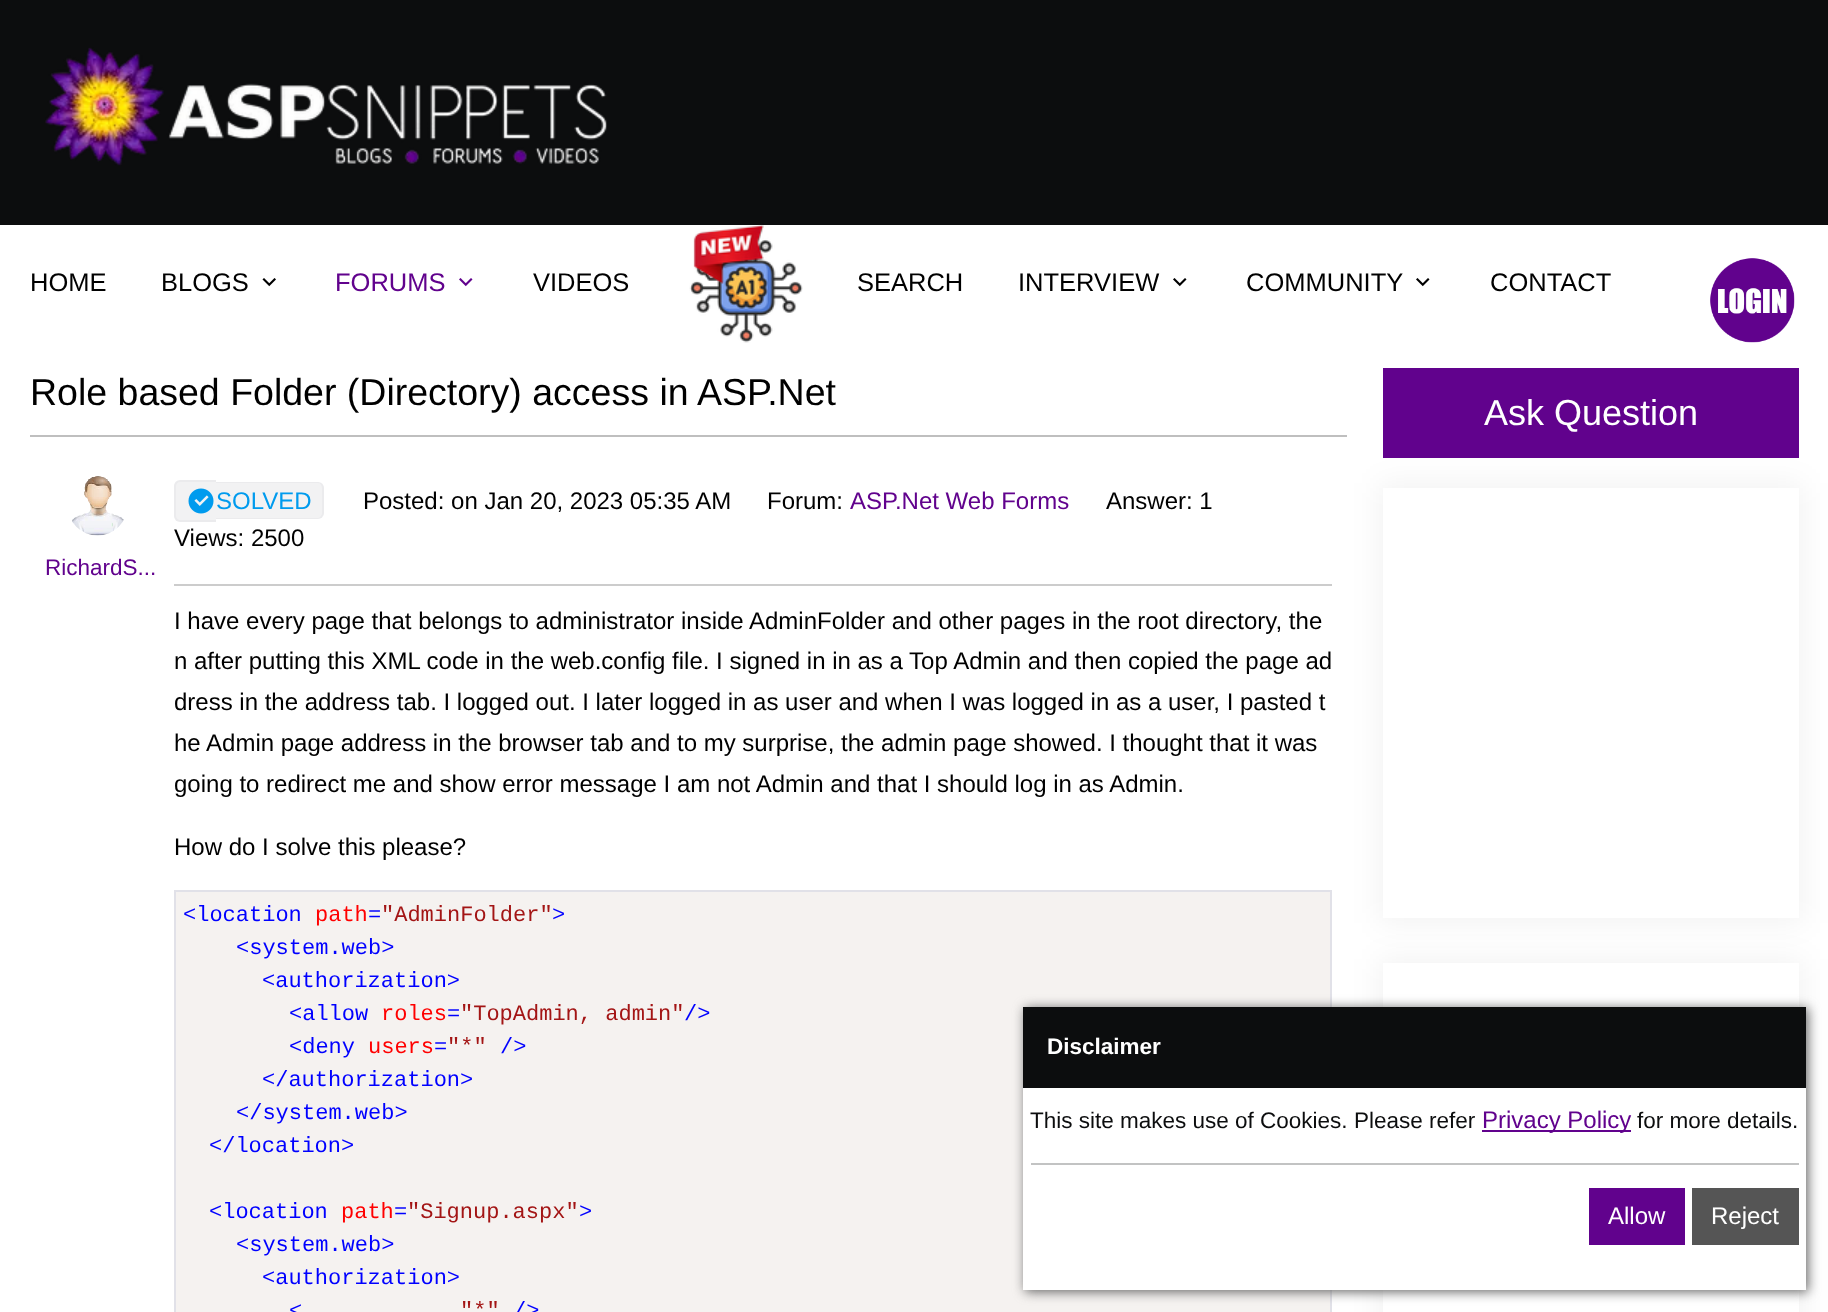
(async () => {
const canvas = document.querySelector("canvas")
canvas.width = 1828
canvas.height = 1312
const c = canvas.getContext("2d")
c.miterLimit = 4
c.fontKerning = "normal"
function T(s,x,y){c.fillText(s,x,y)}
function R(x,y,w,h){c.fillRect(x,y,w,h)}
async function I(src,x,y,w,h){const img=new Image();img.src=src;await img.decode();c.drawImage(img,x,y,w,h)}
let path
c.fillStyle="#fff"
R(0,0,1828,1312)
c.fillStyle="#0c0d0e"
R(0,0,1828,225)
await I("1.png",45,47,562,119)
c.font="25.5px Liberation Sans"
c.fillStyle="#000"
T("HOME",30,291)
T("BLOGS",161,291)
await I("2.png",262,278,14,9)
c.fillStyle="#61028d"
T("FORUMS",335,291)
await I("3.png",459,278,14,9)
c.fillStyle="#000"
T("VIDEOS",533,291)
await I("4.png",689,224,114,119)
T("SEARCH",857,291)
T("INTERVIEW",1018,291)
await I("5.png",1173,278,14,9)
T("COMMUNITY",1246,291)
await I("5.png",1416,278,14,9)
T("CONTACT",1490,291)
await I("6.png",1710,258,85,85)
c.font="37.5px Liberation Sans"
T("Role based Folder (Directory) access in ASP.Net",30,405)
c.fillStyle="#bfbfbf"
R(30,435,1317,2)
await I("7.png",72,476,52,60)
c.font="22.5px Liberation Sans"
c.fillStyle="#61028d"
T("RichardS...",45,575)
c.fillStyle="#f2f2f3"
c.beginPath()
c.roundRect(174,480,42,42,[6,0,0,6])
c.fill()
c.fillStyle="#797f870d"
path = new Path2D("M180 480h36v42h-36c-3 0-6-3-6-6v-30c0-3 3-6 6-6zm0 2h36v38h-36c-2 0-4-2-4-4v-30c0-2 2-4 4-4z")
c.fill(path,"evenodd")
await I("8.png",188,488,26,26)
c.fillStyle="#f2f2f3"
c.beginPath()
c.roundRect(216,482,108,37,[0,6,6,0])
c.fill()
c.fillStyle="#797f870d"
path = new Path2D("M216 482h102c3 0 6 2 6 6v25c0 3-3 6-6 6h-102zm0 1h102c2 0 4 2 4 5v25c0 2-2 5-4 5h-102z")
c.fill(path,"evenodd")
c.font="24px Liberation Sans"
c.fillStyle="#009bee"
T("SOLVED",216,509)
c.fillStyle="#000"
T("Posted: on Jan 20, 2023 05:35 AM",363,509)
T("Forum:",767,509)
c.fillStyle="#61028d"
T("ASP.Net Web Forms",850,509)
c.fillStyle="#000"
T("Answer: 1",1106,509)
T("Views: 2500",174,546)
c.fillStyle="#ccc"
R(174,584,1158,2)
c.fillStyle="#000"
T("I have every page that belongs to administrator inside AdminFolder and other pages in the root directory, the",174,629)
T("n after putting this XML code in the web.config file. I signed in in as a Top Admin and then copied the page ad",174,669)
T("dress in the address tab. I logged out. I later logged in as user and when I was logged in as a user, I pasted t",174,710)
T("he Admin page address in the browser tab and to my surprise, the admin page showed. I thought that it was",174,751)
T("going to redirect me and show error message I am not Admin and that I should log in as Admin.",174,792)
T("How do I solve this please?",174,855)
c.fillStyle="#f5f2f0"
c.beginPath()
c.rect(175,891,1156,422)
c.fill()
c.strokeStyle="#e1e1e8"
c.lineWidth=2
c.stroke()
c.font="22px Liberation Mono"
c.fillStyle="#00f"
T("<location",183,921)
c.fillStyle="#f00"
T("path",315,921)
c.fillStyle="#00f"
T("=",368,921)
c.fillStyle="#a31515"
T("\"AdminFolder\"",381,921)
c.fillStyle="#00f"
T(">",552,921)
T("<system.web>",236,954)
T("<authorization>",262,987)
T("<allow",289,1020)
c.fillStyle="#f00"
T("roles",381,1020)
c.fillStyle="#00f"
T("=",447,1020)
c.fillStyle="#a31515"
T("\"TopAdmin, admin\"",460,1020)
c.fillStyle="#00f"
T("/>",684,1020)
T("<deny",289,1053)
c.fillStyle="#f00"
T("users",368,1053)
c.fillStyle="#00f"
T("=",434,1053)
c.fillStyle="#a31515"
T("\"*\"",447,1053)
c.fillStyle="#00f"
T("/>",500,1053)
T("<\/authorization>",262,1086)
T("<\/system.web>",236,1119)
T("<\/location>",209,1152)
T("<location",209,1218)
c.fillStyle="#f00"
T("path",341,1218)
c.fillStyle="#00f"
T("=",394,1218)
c.fillStyle="#a31515"
T("\"Signup.aspx\"",407,1218)
c.fillStyle="#00f"
T(">",579,1218)
T("<system.web>",236,1251)
T("<authorization>",262,1284)
T("<",289,1317)
c.fillStyle="#a31515"
T("\"*\"",460,1317)
c.fillStyle="#00f"
T("/>",513,1317)
c.fillStyle="#0000000d"
c.filter="blur(15px)"
c.beginPath()
c.rect(1379,483,424,440)
c.fill()
c.filter="none"
c.fillStyle="#61028d"
R(1383,368,416,90)
c.font="36px Liberation Sans"
c.fillStyle="#fff"
T("Ask Question",1484,425)
R(1383,488,416,430)
c.fillStyle="#0000000d"
c.filter="blur(15px)"
c.beginPath()
c.rect(1379,959,424,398)
c.fill()
c.filter="none"
c.fillStyle="#fff"
R(1383,963,416,349)
c.fillStyle="#666"
c.filter="blur(6px)"
c.beginPath()
c.rect(1025,1008,783,284)
c.fill()
c.filter="none"
c.fillStyle="#fff"
R(1023,1088,783,202)
c.fillStyle="#0c0d0e"
R(1023,1007,783,81)
c.font="bold 22.5px Liberation Sans"
c.fillStyle="#fff"
T("Disclaimer",1047,1054)
c.font="22.5px Liberation Sans"
c.fillStyle="#0c0d0e"
T("This site makes use of Cookies. Please refer",1030,1128)
c.fillStyle="#61028d"
R(1482,1130,149,2)
c.font="24px Liberation Sans"
T("Privacy Policy",1482,1128)
c.font="22.5px Liberation Sans"
c.fillStyle="#0c0d0e"
T("for more details.",1637,1128)
c.fillStyle="#c2c3c3"
R(1031,1163,768,2)
c.fillStyle="#61028d"
R(1589,1188,96,57)
c.font="24px Liberation Sans"
c.fillStyle="#fff"
T("Allow",1608,1224)
c.fillStyle="#555"
R(1692,1188,107,57)
c.fillStyle="#fff"
T("Reject",1711,1224)
})()
